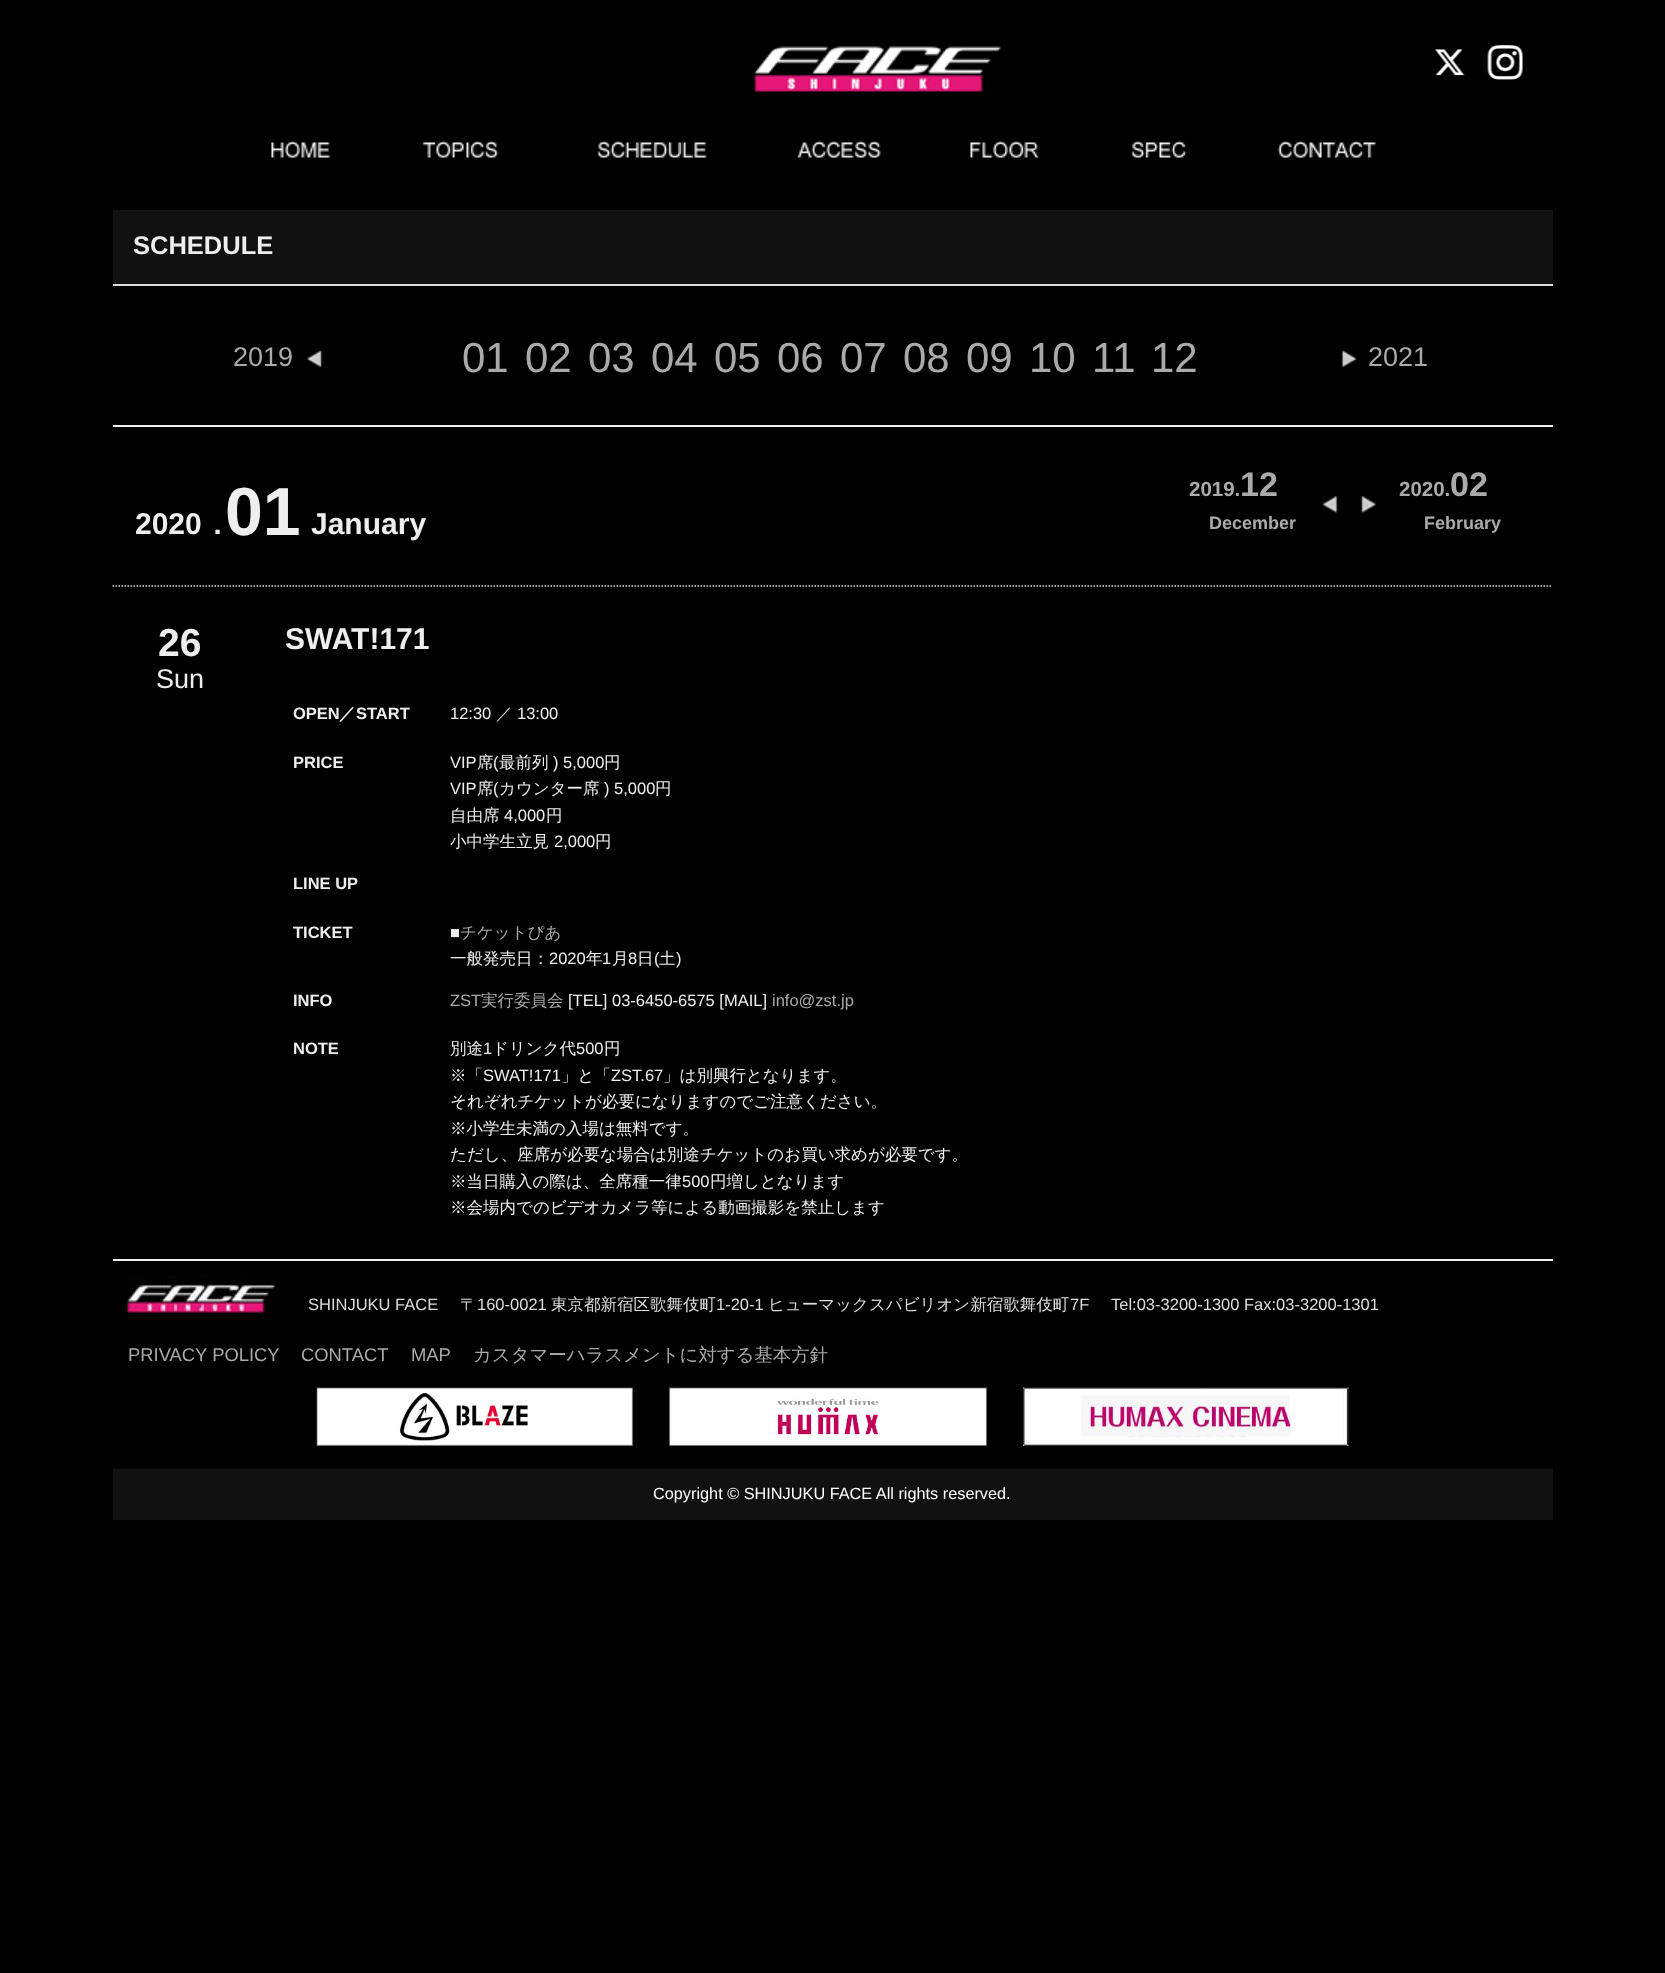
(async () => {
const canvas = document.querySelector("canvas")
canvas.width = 1665
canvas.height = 1973
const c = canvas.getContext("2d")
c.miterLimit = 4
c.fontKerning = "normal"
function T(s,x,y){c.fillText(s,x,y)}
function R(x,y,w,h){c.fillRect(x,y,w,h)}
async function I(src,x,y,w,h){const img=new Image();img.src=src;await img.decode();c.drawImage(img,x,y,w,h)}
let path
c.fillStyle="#000"
R(0,0,1665,1973)
await I("1.png",754,46,247,46)
await I("2.png",1434,49,31,27)
await I("3.png",1487,45,36,35)
await I("4.png",271,140,60,18)
await I("5.png",422,140,77,18)
await I("6.png",597,140,110,18)
await I("7.png",797,140,84,18)
await I("8.png",970,140,69,18)
await I("9.png",1131,140,56,18)
await I("10.png",1277,140,99,18)
c.fillStyle="#111"
R(113,210,1440,74)
c.fillStyle="#ddd"
R(113,284,1440,2)
c.font="bold 25.5px Liberation Sans"
c.fillStyle="#eee"
T("SCHEDULE",133,254)
R(113,425,1440,2)
await I("11.png",307,349,16,19)
c.font="27px Liberation Sans"
c.fillStyle="#aaa"
T("2019",233,366)
c.font="42px Liberation Sans"
T("01",462,372)
T("02",525,372)
T("03",588,372)
T("04",651,372)
T("05",714,372)
T("06",777,372)
T("07",840,372)
T("08",903,372)
T("09",966,372)
T("10",1029,372)
T("11",1092,372)
T("12",1151,372)
await I("12.png",1341,349,16,19)
c.font="27px Liberation Sans"
T("2021",1368,366)
c.font="bold 30px Liberation Sans"
c.fillStyle="#eee"
T("2020",135,534)
c.font="bold 30px WenQuanYi Zen Hei"
T("．",202,534)
c.font="bold 68px Liberation Sans"
T("01",225,535)
c.font="bold 30px Liberation Sans"
T("January",311,534)
await I("13.png",1322,495,16,19)
c.font="bold 20.5px Liberation Sans"
c.fillStyle="#aaa"
T("2019.",1189,496)
c.font="bold 34px Liberation Sans"
T("12",1240,496)
c.font="bold 18px Liberation Sans"
T("December",1209,529)
await I("14.png",1360,495,16,19)
c.font="bold 20.5px Liberation Sans"
T("2020.",1399,496)
c.font="bold 34px Liberation Sans"
T("02",1450,496)
c.font="bold 18px Liberation Sans"
T("February",1424,529)
path = new Path2D("M112.5 586h1440")
c.strokeStyle="#ddd"
c.lineWidth=1.5
c.setLineDash([1.5,1.5])
c.stroke(path)
c.font="bold 39px Liberation Sans"
c.fillStyle="#eee"
T("26",158,656)
c.font="27px Liberation Sans"
T("Sun",156,688)
c.font="bold 30px Liberation Sans"
T("SWAT!171",285,649)
c.font="bold 16.5px Liberation Sans"
T("OPEN",293,719)
c.font="bold 16.5px WenQuanYi Zen Hei"
T("／",339,719)
c.font="bold 16.5px Liberation Sans"
T("START",356,719)
c.font="16.5px Liberation Sans"
T("12:30",450,719)
c.font="500 16.5px WenQuanYi Zen Hei"
T("／",496,719)
c.font="16.5px Liberation Sans"
T("13:00",517,719)
c.font="bold 16.5px Liberation Sans"
T("PRICE",293,768)
c.font="16.5px Liberation Sans"
T("VIP",450,768)
c.font="500 16.5px WenQuanYi Zen Hei"
T("席",477,768)
c.font="16.5px Liberation Sans"
T("(",493,768)
c.font="500 16.5px WenQuanYi Zen Hei"
T("最前列",499,768)
c.font="16.5px Liberation Sans"
T(") 5,000",553,768)
c.font="500 16.5px WenQuanYi Zen Hei"
T("円",604,768)
c.font="16.5px Liberation Sans"
T("VIP",450,794)
c.font="500 16.5px WenQuanYi Zen Hei"
T("席",477,794)
c.font="16.5px Liberation Sans"
T("(",493,794)
c.font="500 16.5px WenQuanYi Zen Hei"
T("カウンター席",499,794)
c.font="16.5px Liberation Sans"
T(") 5,000",604,794)
c.font="500 16.5px WenQuanYi Zen Hei"
T("円",655,794)
T("自由席",450,821)
c.font="16.5px Liberation Sans"
T("4,000",504,821)
c.font="500 16.5px WenQuanYi Zen Hei"
T("円",546,821)
T("小中学生立見",450,847)
c.font="16.5px Liberation Sans"
T("2,000",554,847)
c.font="500 16.5px WenQuanYi Zen Hei"
T("円",595,847)
c.font="bold 16.5px Liberation Sans"
T("LINE UP",293,889)
T("TICKET",293,938)
c.font="16.5px Liberation Sans"
T("■",450,938)
c.font="500 16.5px WenQuanYi Zen Hei"
c.fillStyle="#aaa"
T("チケットぴあ",460,938)
c.fillStyle="#eee"
T("一般発売日：",450,964)
c.font="16.5px Liberation Sans"
T("2020",549,964)
c.font="500 16.5px WenQuanYi Zen Hei"
T("年",586,964)
c.font="16.5px Liberation Sans"
T("1",602,964)
c.font="500 16.5px WenQuanYi Zen Hei"
T("月",612,964)
c.font="16.5px Liberation Sans"
T("8",628,964)
c.font="500 16.5px WenQuanYi Zen Hei"
T("日",637,964)
c.font="16.5px Liberation Sans"
T("(",654,964)
c.font="500 16.5px WenQuanYi Zen Hei"
T("土",659,964)
c.font="16.5px Liberation Sans"
T(")",676,964)
c.font="bold 16.5px Liberation Sans"
T("INFO",293,1006)
c.font="16.5px Liberation Sans"
c.fillStyle="#aaa"
T("ZST",450,1006)
c.font="500 16.5px WenQuanYi Zen Hei"
T("実行委員会",481,1006)
c.font="16.5px Liberation Sans"
c.fillStyle="#eee"
T("[TEL] 03-6450-6575 [MAIL]",568,1006)
c.fillStyle="#aaa"
T("info@zst.jp",772,1006)
c.font="bold 16.5px Liberation Sans"
c.fillStyle="#eee"
T("NOTE",293,1054)
c.font="500 16.5px WenQuanYi Zen Hei"
T("別途",450,1054)
c.font="16.5px Liberation Sans"
T("1",483,1054)
c.font="500 16.5px WenQuanYi Zen Hei"
T("ドリンク代",492,1054)
c.font="16.5px Liberation Sans"
T("500",576,1054)
c.font="500 16.5px WenQuanYi Zen Hei"
T("円",604,1054)
T("※「",450,1081)
c.font="16.5px Liberation Sans"
T("SWAT!171",483,1081)
c.font="500 16.5px WenQuanYi Zen Hei"
T("」と「",561,1081)
c.font="16.5px Liberation Sans"
T("ZST.67",611,1081)
c.font="500 16.5px WenQuanYi Zen Hei"
T("」は別興行となります。",663,1081)
T("それぞれチケットが必要になりますのでご注意ください。",450,1107)
T("※小学生未満の入場は無料です。",450,1134)
T("ただし、座席が必要な場合は別途チケットのお買い求めが必要です。",450,1160)
T("※当日購入の際は、全席種一律",450,1187)
c.font="16.5px Liberation Sans"
T("500",682,1187)
c.font="500 16.5px WenQuanYi Zen Hei"
T("円増しとなります",710,1187)
T("※会場内でのビデオカメラ等による動画撮影を禁止します",450,1213)
R(113,1259,1440,2)
await I("15.png",127,1275,149,47)
c.font="16.5px Liberation Sans"
c.fillStyle="#ddd"
T("SHINJUKU FACE",308,1310)
c.font="500 16.5px WenQuanYi Zen Hei"
T("〒",460,1310)
c.font="16.5px Liberation Sans"
T("160-0021",477,1310)
c.font="500 16.5px WenQuanYi Zen Hei"
T("東京都新宿区歌舞伎町",551,1310)
c.font="16.5px Liberation Sans"
T("1-20-1",716,1310)
c.font="500 16.5px WenQuanYi Zen Hei"
T("ヒューマックスパビリオン新宿歌舞伎町",768,1310)
c.font="16.5px Liberation Sans"
T("7F",1070,1310)
T("Tel:03-3200-1300 Fax:03-3200-1301",1111,1310)
c.font="18.4px Liberation Sans"
c.fillStyle="#aaa"
T("PRIVACY POLICY",128,1361)
T("CONTACT",301,1361)
T("MAP",411,1361)
c.font="500 18.4px WenQuanYi Zen Hei"
T("カスタマーハラスメントに対する基本方針",473,1361)
await I("16.png",316,1387,317,59)
await I("17.png",669,1387,318,59)
await I("18.png",1023,1387,326,59)
c.fillStyle="#111"
R(113,1469,1440,51)
c.font="16.3px Liberation Sans"
c.fillStyle="#fff"
T("Copyright © SHINJUKU FACE All rights reserved.",653,1499)
})()
